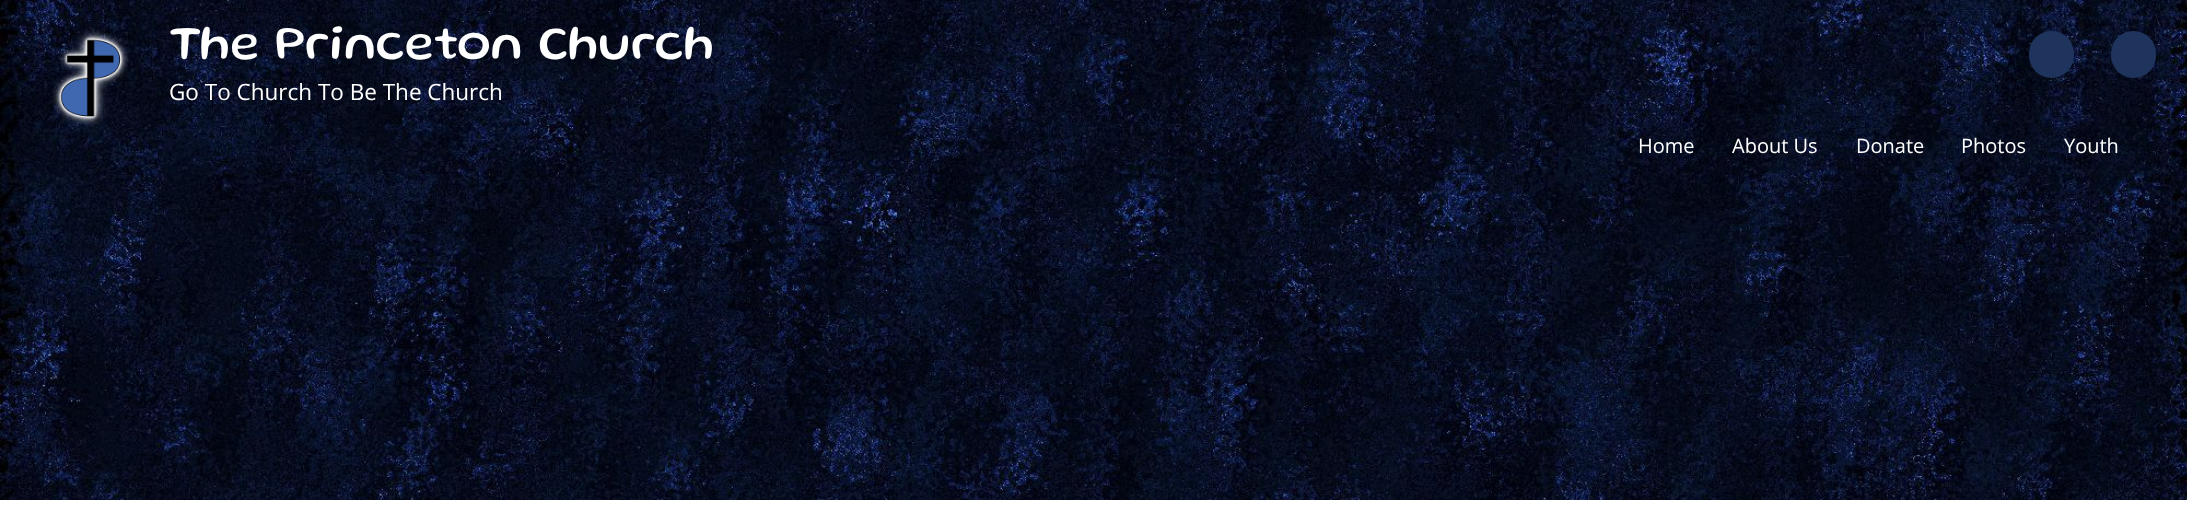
(async () => {
const canvas = document.querySelector("canvas")
canvas.width = 2187
canvas.height = 522
const c = canvas.getContext("2d")
c.miterLimit = 4
c.fontKerning = "normal"
function T(s,x,y){c.fillText(s,x,y)}
function R(x,y,w,h){c.fillRect(x,y,w,h)}
function Q(x,y,w,h,r){c.beginPath();c.roundRect(x,y,w,h,r);c.fill()}
async function I(src,x,y,w,h){const img=new Image();img.src=src;await img.decode();c.drawImage(img,x,y,w,h)}
c.fillStyle="#fff"
R(0,0,2187,522)
await I("1.png",0,0,2187,500)
await I("2.png",52,30,77,97)
c.font="100 50px Gluten"
T("The Princeton Church",169,58)
c.font="22.5px Open Sans"
T("Go To Church To Be The Church",169,100)
c.fillStyle="#1f345c"
Q(2029,31,45,47,22.5)
Q(2111,31,45,47,22.5)
c.font="20px Open Sans"
c.fillStyle="#fff"
T("Home",1638,153)
T("About Us",1732,153)
T("Donate",1856,153)
T("Photos",1961,153)
T("Youth",2064,153)
})()
